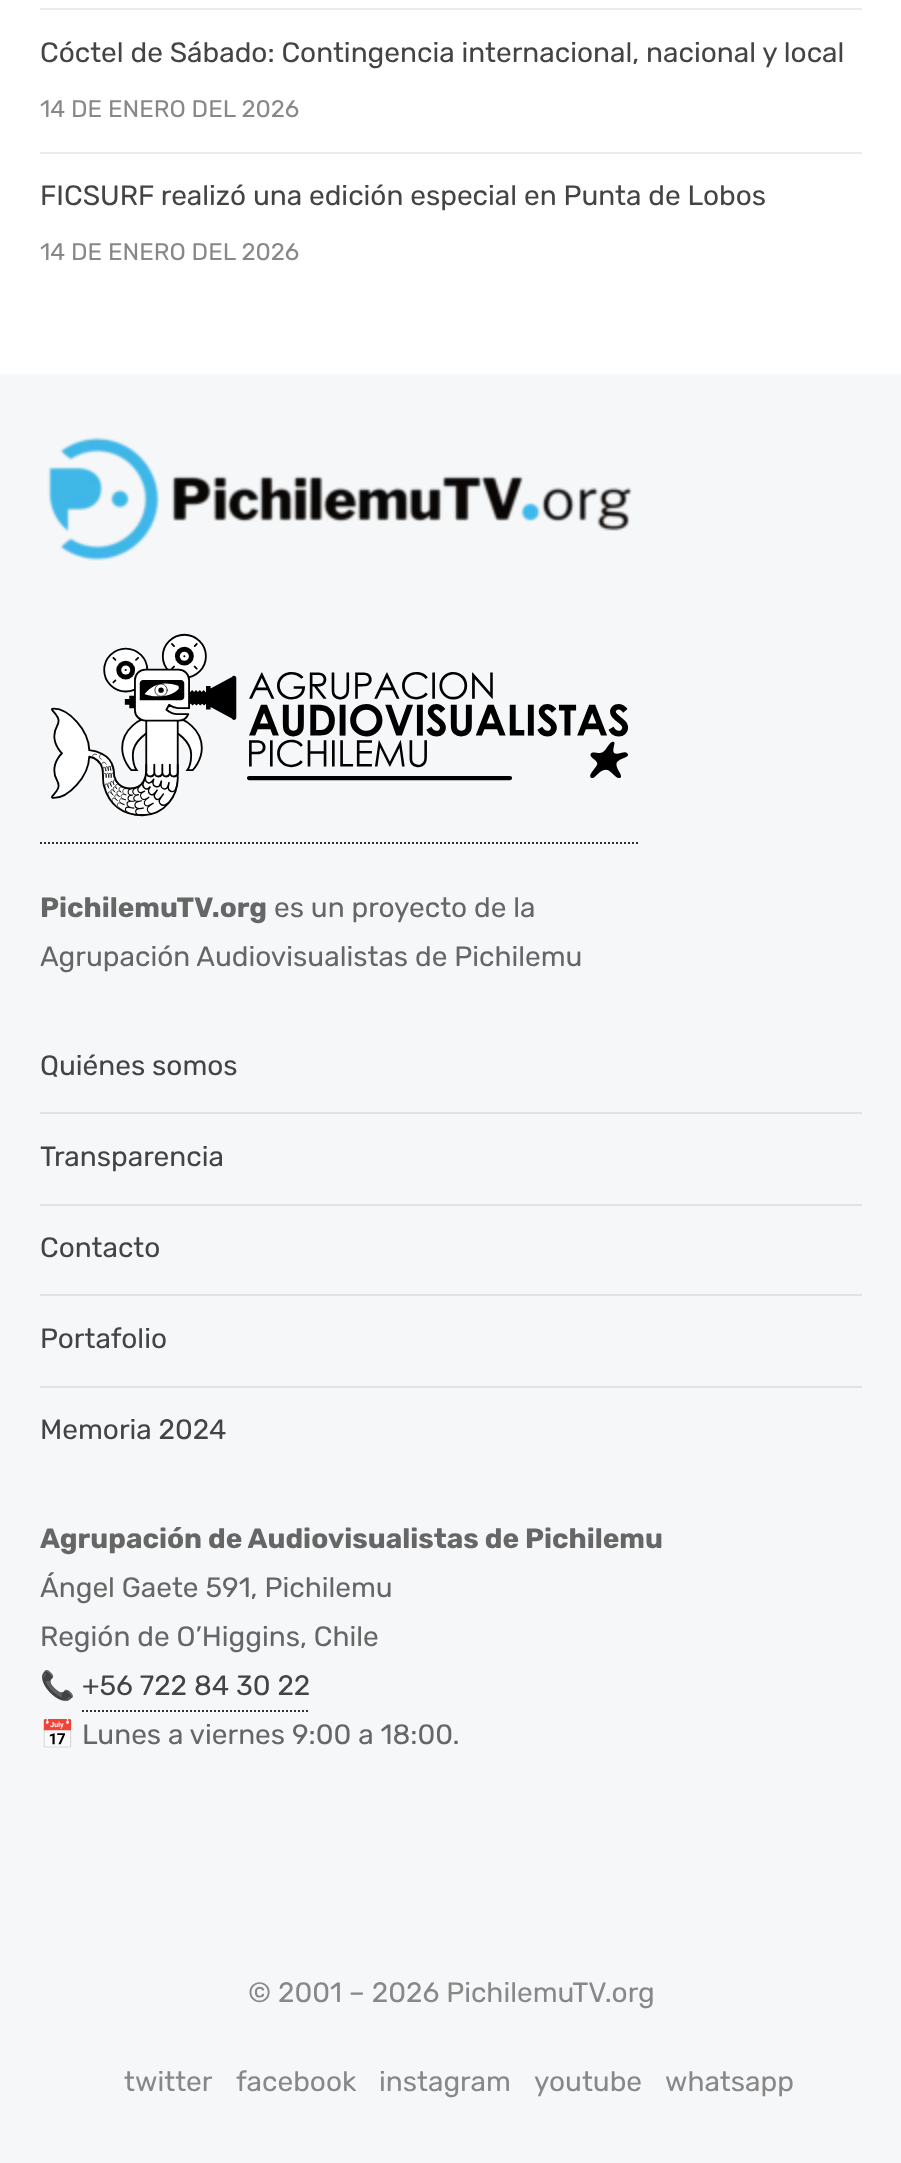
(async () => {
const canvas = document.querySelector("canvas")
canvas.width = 901
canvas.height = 2163
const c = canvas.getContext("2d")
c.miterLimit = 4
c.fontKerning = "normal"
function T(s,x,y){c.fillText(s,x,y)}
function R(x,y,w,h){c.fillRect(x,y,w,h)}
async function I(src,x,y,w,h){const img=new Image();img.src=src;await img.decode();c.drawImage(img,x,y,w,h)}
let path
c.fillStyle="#fff"
R(0,0,901,2163)
c.fillStyle="#ebebeb"
R(40,8,822,2)
R(40,152,822,2)
c.font="28px Rubik"
c.fillStyle="#444"
T("Cóctel de Sábado: Contingencia internacional, nacional y local",40,62)
c.font="24px Rubik"
c.fillStyle="#888"
T("14 DE ENERO DEL 2026",40,117)
c.font="28px Rubik"
c.fillStyle="#444"
T("FICSURF realizó una edición especial en Punta de Lobos",40,205)
c.font="24px Rubik"
c.fillStyle="#888"
T("14 DE ENERO DEL 2026",40,260)
c.fillStyle="#f6f7f8"
R(0,374,901,1789)
await I("1.png",47,437,585,124)
await I("2.png",51,633,578,184)
path = new Path2D("M40 843h600")
c.strokeStyle="#313132"
c.lineWidth=2
c.setLineDash([2,2])
c.stroke(path)
c.font="bold 28px Rubik"
c.fillStyle="#666"
T("PichilemuTV.org",40,917)
c.font="28px Rubik"
T("es un proyecto de la",274,917)
T("Agrupación Audiovisualistas de Pichilemu",40,966)
c.fillStyle="#e2e3e4"
R(40,1112,822,2)
c.fillStyle="#444"
T("Quiénes somos",40,1075)
c.fillStyle="#e2e3e4"
R(40,1204,822,2)
c.fillStyle="#444"
T("Transparencia",40,1166)
c.fillStyle="#e2e3e4"
R(40,1294,822,2)
c.fillStyle="#444"
T("Contacto",40,1257)
c.fillStyle="#e2e3e4"
R(40,1386,822,2)
c.fillStyle="#444"
T("Portafolio",40,1348)
T("Memoria 2024",40,1439)
c.font="bold 28px Rubik"
c.fillStyle="#666"
T("Agrupación de Audiovisualistas de Pichilemu",40,1548)
c.font="28px Rubik"
T("Ángel Gaete 591, Pichilemu",40,1597)
T("Región de O’Higgins, Chile",40,1646)
c.font="28px Noto Color Emoji"
T("📞",40,1695)
c.font="28px Rubik"
c.fillStyle="#444"
T("+56 722 84 30 22",82,1695)
path = new Path2D("M82 1711h228")
c.stroke(path)
c.font="28px Noto Color Emoji"
c.fillStyle="#666"
T("📅",40,1744)
c.font="28px Rubik"
T("Lunes a viernes 9:00 a 18:00.",82,1744)
c.fillStyle="#888"
T("© 2001 – 2026 PichilemuTV.org",248,2002)
T("twitter",124,2091)
T("facebook",236,2091)
T("instagram",379,2091)
T("youtube",534,2091)
T("whatsapp",665,2091)
})()
